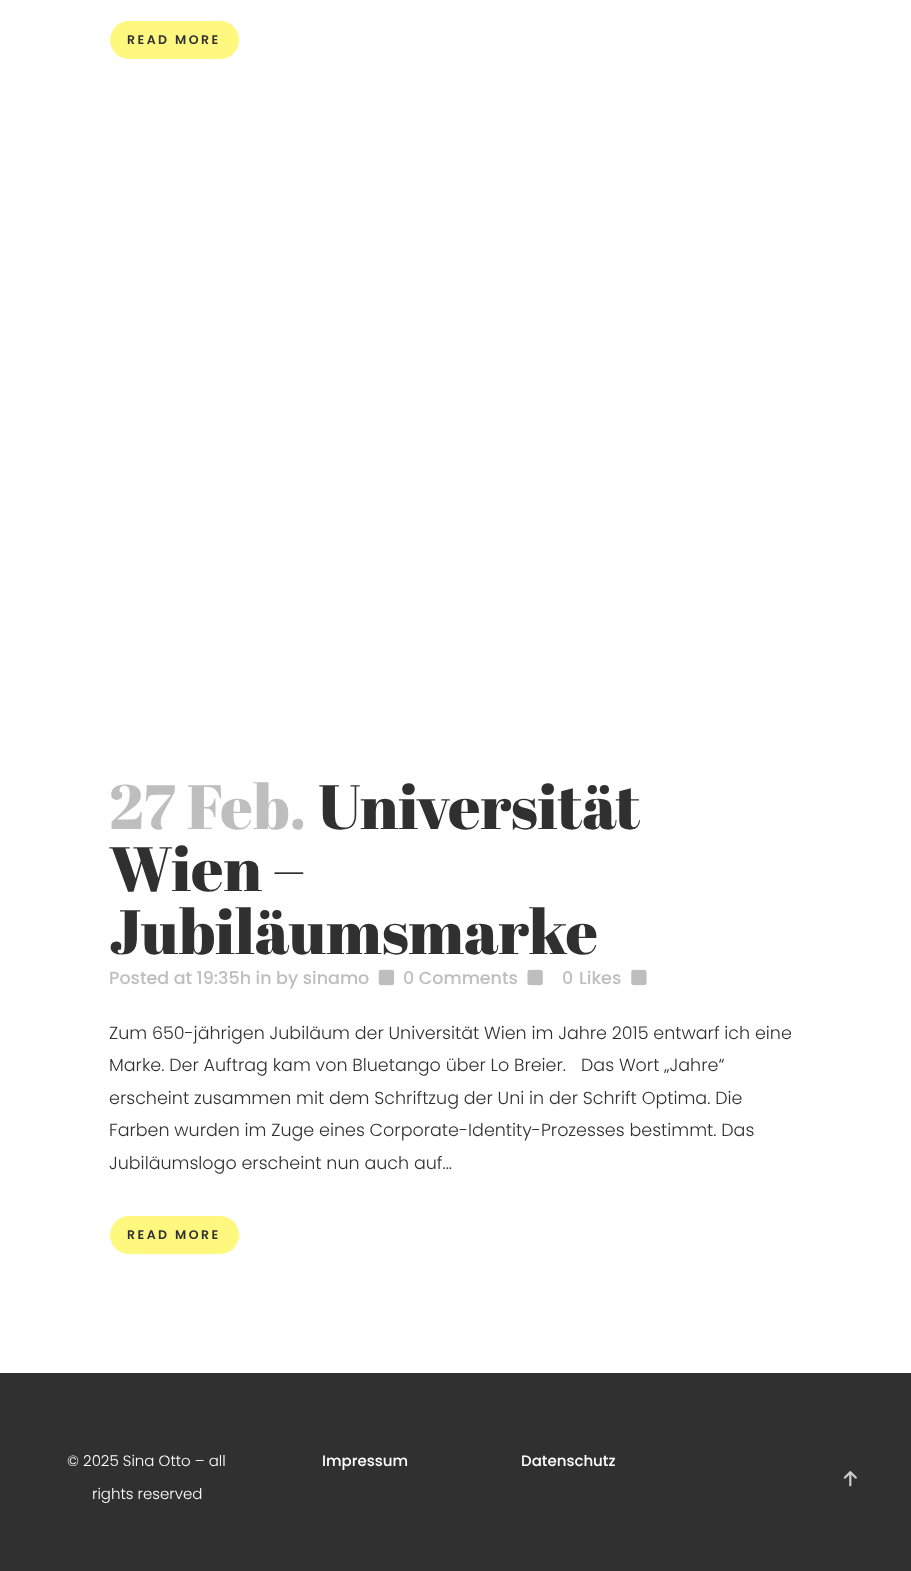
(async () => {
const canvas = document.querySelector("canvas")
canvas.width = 911
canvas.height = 1571
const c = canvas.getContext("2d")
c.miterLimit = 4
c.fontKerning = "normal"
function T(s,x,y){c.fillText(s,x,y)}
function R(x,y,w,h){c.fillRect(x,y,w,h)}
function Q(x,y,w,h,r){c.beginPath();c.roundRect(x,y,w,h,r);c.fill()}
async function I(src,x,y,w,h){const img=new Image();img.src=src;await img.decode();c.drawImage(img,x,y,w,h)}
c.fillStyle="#fff"
R(0,0,911,1571)
c.fillStyle="#fff87f"
Q(110,21,129,38,19)
c.letterSpacing="2.5px"
c.font="600 12.5px Poppins"
c.fillStyle="#303030"
T("READ MORE",127,44)
c.letterSpacing="0px"
c.font="62.5px Abril Fatface"
c.fillStyle="#bebebe"
T("27 Feb.",109,829)
c.fillStyle="#303030"
T("Universität",318,829)
T("Wien –",109,891)
T("Jubiläumsmarke",109,954)
c.font="500 17.5px Poppins"
c.fillStyle="#bebebe"
T("Posted at 19:35h in by sinamo",109,984)
await I("1.png",378,969,17,17)
T("0 Comments",403,984)
await I("2.png",527,969,16,17)
T("0",562,984)
T("Likes",579,984)
await I("3.png",631,969,16,17)
c.font="300 17.5px Poppins"
c.fillStyle="#303030"
T("Zum 650-jährigen Jubiläum der Universität Wien im Jahre 2015 entwarf ich eine",109,1039)
T("Marke. Der Auftrag kam von Bluetango über Lo Breier.",109,1071)
T("Das Wort „Jahre“",581,1071)
T("erscheint zusammen mit dem Schriftzug der Uni in der Schrift Optima. Die",109,1104)
T("Farben wurden im Zuge eines Corporate-Identity-Prozesses bestimmt. Das",109,1136)
T("Jubiläumslogo erscheint nun auch auf...",109,1169)
c.fillStyle="#fff87f"
Q(110,1216,129,38,19)
c.letterSpacing="2.5px"
c.font="600 12.5px Poppins"
c.fillStyle="#303030"
T("READ MORE",127,1239)
R(0,1373,911,198)
c.letterSpacing="0px"
c.font="300 15px Poppins"
c.fillStyle="#fff"
T("© 2025 Sina Otto – all",67,1466)
T("rights reserved",92,1499)
c.font="500 15px Poppins"
T("Impressum",322,1466)
T("Datenschutz",521,1466)
await I("4.png",843,1471,14,16)
})()
